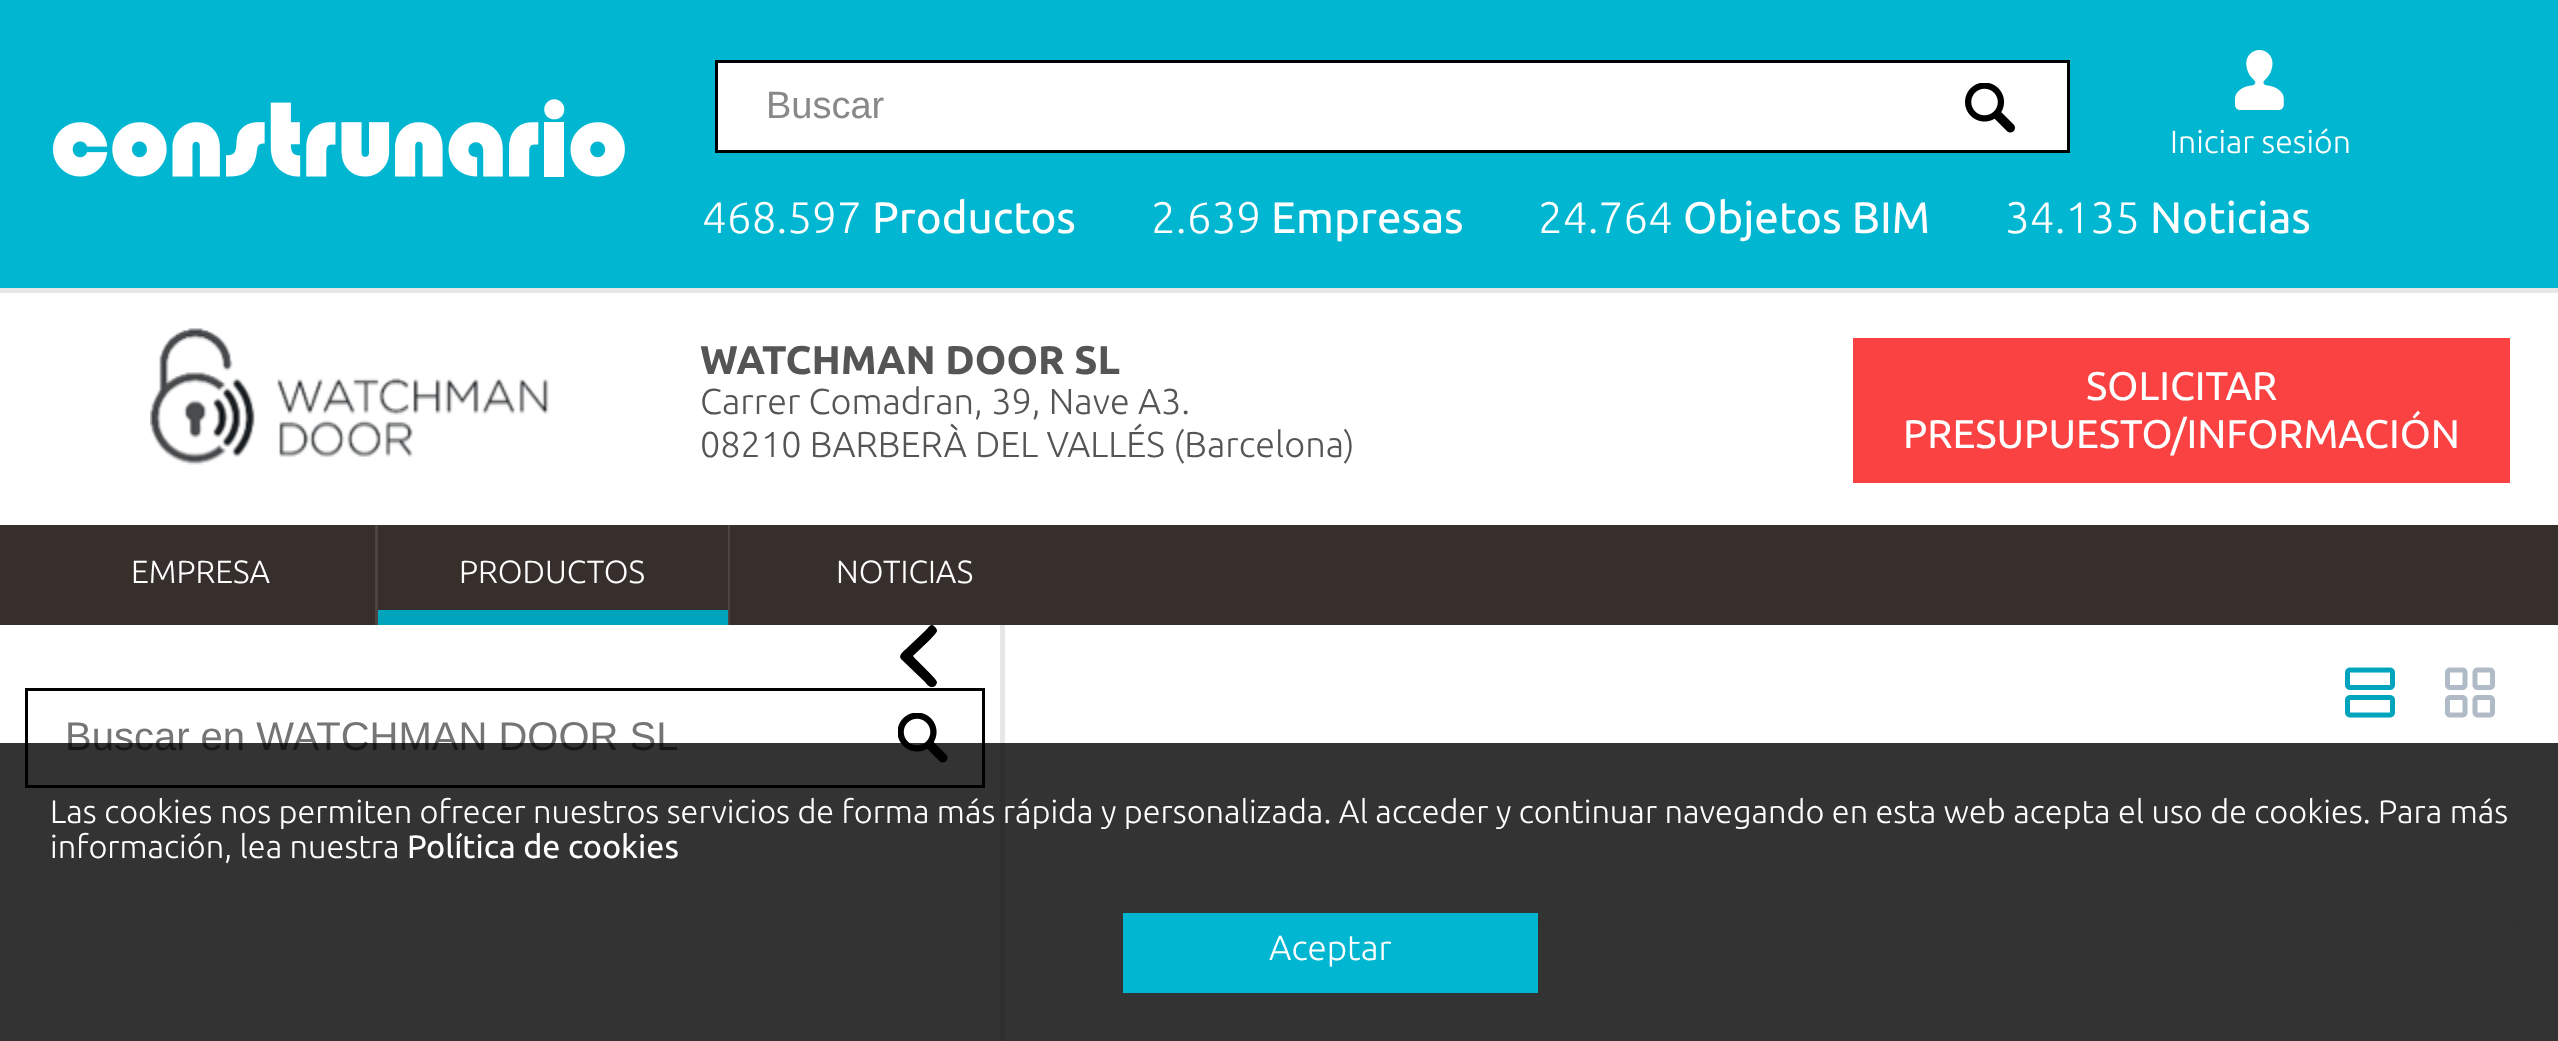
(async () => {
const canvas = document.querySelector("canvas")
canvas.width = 2558
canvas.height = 1041
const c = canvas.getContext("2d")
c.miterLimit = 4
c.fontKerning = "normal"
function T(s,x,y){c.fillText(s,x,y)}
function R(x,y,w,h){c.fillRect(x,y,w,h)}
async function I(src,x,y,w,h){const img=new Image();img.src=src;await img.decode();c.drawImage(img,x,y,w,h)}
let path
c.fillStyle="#fff"
R(0,0,2558,1041)
c.fillStyle="#00b6d1"
R(0,0,2558,288)
c.fillStyle="#e6e6e6"
R(0,288,2558,5)
await I("1.png",53,99,572,78)
c.fillStyle="#fff"
R(718,63,1349,87)
await I("2.png",1965,83,50,50)
c.strokeStyle="#000"
c.lineWidth=3
c.strokeRect(716.5,61.5,1352,90)
c.font="38px Liberation Sans"
c.fillStyle="#888"
T("Buscar",766,118)
await I("3.png",2235,50,49,60)
c.font="300 32px Ubuntu"
c.fillStyle="#fff"
T("Iniciar sesión",2170,153)
c.font="300 44px Ubuntu"
T("468.597",702,233)
c.font="44px Ubuntu"
T("Productos",872,233)
c.font="300 44px Ubuntu"
T("2.639",1151,233)
c.font="44px Ubuntu"
T("Empresas",1271,233)
c.font="300 44px Ubuntu"
T("24.764",1538,233)
c.font="44px Ubuntu"
T("Objetos BIM",1683,233)
c.font="300 44px Ubuntu"
T("34.135",2005,233)
c.font="44px Ubuntu"
T("Noticias",2150,233)
await I("4.png",150,328,399,137)
c.font="bold 40px Ubuntu"
c.fillStyle="#555"
T("WATCHMAN DOOR SL",700,374)
c.font="300 36px Ubuntu"
T("Carrer Comadran, 39, Nave A3.",700,414)
T("08210 BARBERÀ DEL VALLÉS (Barcelona)",700,457)
c.fillStyle="#fb4242"
R(1853,338,657,145)
c.font="40px Ubuntu"
c.fillStyle="#fff"
T("SOLICITAR",2086,400)
T("PRESUPUESTO/INFORMACIÓN",1903,448)
c.fillStyle="#372f2b"
R(0,525,2558,100)
c.font="300 32px Ubuntu"
c.fillStyle="#fff"
T("EMPRESA",131,583)
c.fillStyle="#4b4441"
R(375,525,3,100)
c.fillStyle="#00a4bc"
R(378,610,350,15)
c.fillStyle="#fff"
T("PRODUCTOS",459,583)
c.fillStyle="#4b4441"
R(728,525,2,100)
c.fillStyle="#fff"
T("NOTICIAS",836,583)
c.fillStyle="#e6e6e6"
R(1000,625,5,416)
c.fillStyle="#000"
path = new Path2D("M901 659l24 23c1 1 4 6 8 5c2 0 4-3 4-5c0-3-21-22-24-26c3-3 24-22 24-25c0-2-1-3-2-4c-4-5-6 0-10 4l-19 18c-2 2-8 6-5 10z")
c.fill(path)
await I("5.png",898,713,50,50)
c.strokeRect(26.5,689.5,957,97)
c.font="40px Liberation Sans"
c.fillStyle="#757575"
T("Buscar en WATCHMAN DOOR SL",65,750)
await I("6.png",2345,667,50,51)
await I("7.png",2445,667,50,51)
c.strokeStyle="#f7f7f7"
c.lineWidth=5
c.strokeRect(1047.5,922.5,1470,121)
c.fillStyle="#000000cc"
R(0,743,2558,298)
c.font="300 32.5px Ubuntu"
c.fillStyle="#fff"
T("Las cookies nos permiten ofrecer nuestros servicios de forma más rápida y personalizada. Al acceder y continuar navegando en esta web acepta el uso de cookies. Para más",50,823)
T("información, lea nuestra",50,858)
c.font="32.5px Ubuntu"
T("Política de cookies",407,858)
c.fillStyle="#00b6d1"
R(1123,913,415,80)
c.font="300 35px Ubuntu"
c.fillStyle="#fff"
T("Aceptar",1269,960)
})()
